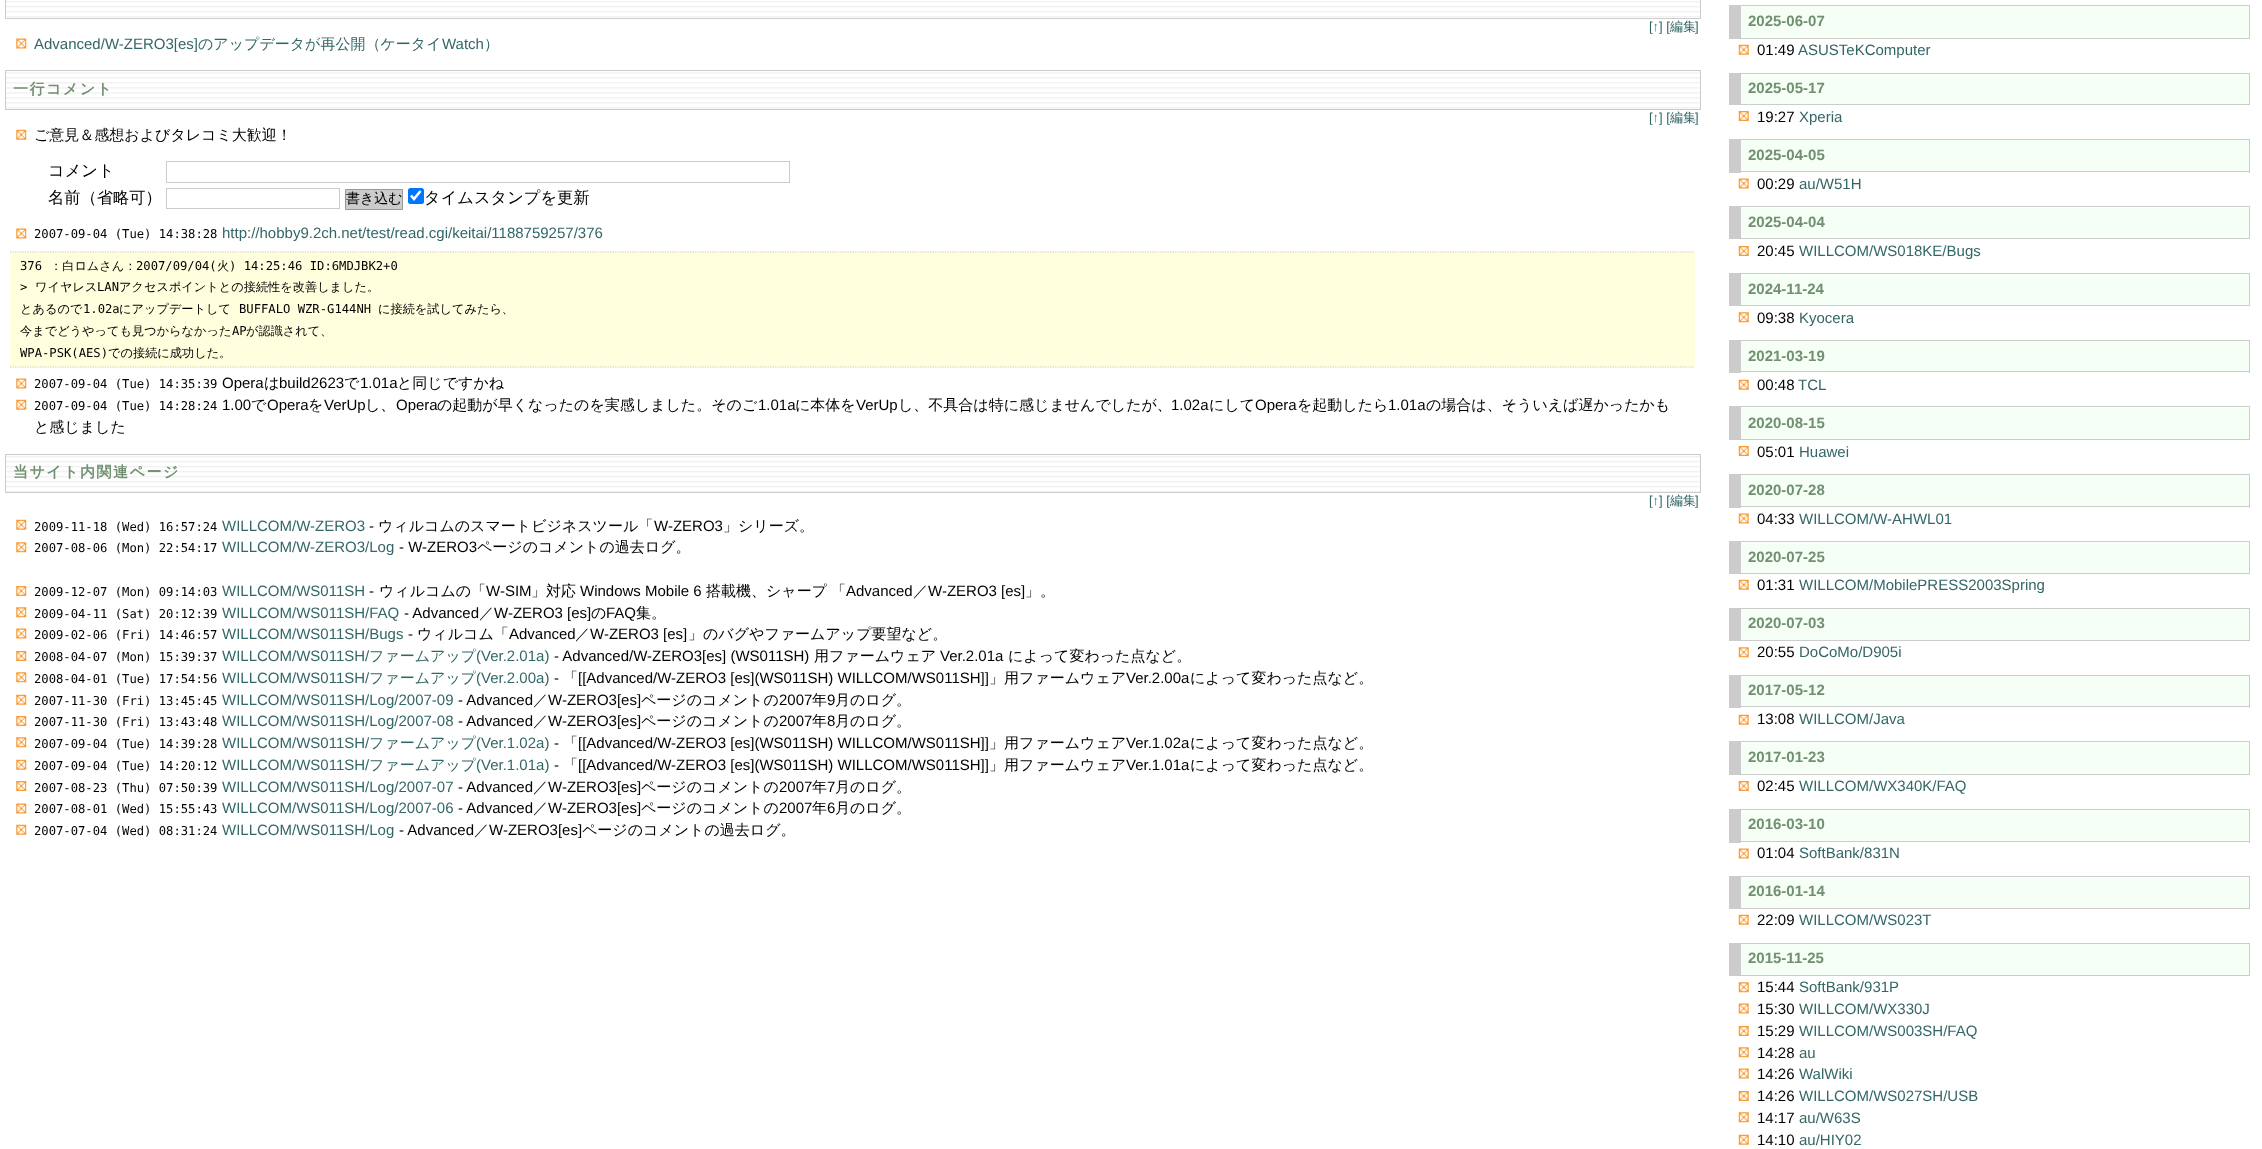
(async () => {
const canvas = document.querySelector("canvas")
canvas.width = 2262
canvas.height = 1149
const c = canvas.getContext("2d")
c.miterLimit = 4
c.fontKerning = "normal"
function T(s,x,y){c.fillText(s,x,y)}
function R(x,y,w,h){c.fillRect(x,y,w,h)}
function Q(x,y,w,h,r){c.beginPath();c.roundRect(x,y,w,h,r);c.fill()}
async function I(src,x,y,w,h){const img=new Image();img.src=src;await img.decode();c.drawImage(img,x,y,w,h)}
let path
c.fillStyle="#fff"
R(0,0,2262,1149)
await I("1.png",6,1,1694,17)
c.strokeStyle="#ccc"
c.strokeRect(5.5,-.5,1695,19)
c.font="13px Liberation Sans"
c.fillStyle="#366"
T("[↑] [",1649,31)
c.font="500 13px WenQuanYi Zen Hei"
T("編集",1670,31)
c.font="13px Liberation Sans"
T("]",1695,31)
await I("2.png",16,38,11,11)
c.font="15px Liberation Sans"
T("Advanced/W-ZERO3[es]",34,49)
c.font="500 15px WenQuanYi Zen Hei"
T("のアップデータが再公開（ケータイ",198,49)
c.font="15px Liberation Sans"
T("Watch",442,49)
c.font="500 15px WenQuanYi Zen Hei"
T("）",484,49)
await I("3.png",6,71,1694,38)
c.strokeRect(5.5,70.5,1695,39)
c.letterSpacing="1.5px"
c.font="bold 15px WenQuanYi Zen Hei"
c.fillStyle="#719071"
T("一行コメント",13,94)
c.letterSpacing="0px"
c.font="13px Liberation Sans"
c.fillStyle="#366"
T("[↑] [",1649,122)
c.font="500 13px WenQuanYi Zen Hei"
T("編集",1670,122)
c.font="13px Liberation Sans"
T("]",1695,122)
await I("4.png",16,129,11,11)
c.font="500 15px WenQuanYi Zen Hei"
c.fillStyle="#000"
T("ご意見＆感想およびタレコミ大歓迎！",34,140)
c.font="500 16.25px WenQuanYi Zen Hei"
T("コメント",48,176)
c.strokeRect(166.5,161.5,623,21)
T("名前（省略可）",48,203)
c.strokeRect(166.5,188.5,173,20)
c.fillStyle="#ccc"
c.beginPath()
c.rect(345.5,189.5,57,20)
c.fill()
c.strokeStyle="#999"
c.stroke()
c.font="500 14px WenQuanYi Zen Hei"
c.fillStyle="#000"
T("書き込む",346,203)
c.fillStyle="#0075ff"
Q(408,188,16,16,2.5)
path = new Path2D("M411 195.5l3 3.5l6.5-8")
c.strokeStyle="#fff"
c.lineWidth=2.6
c.stroke(path)
c.font="500 16.25px WenQuanYi Zen Hei"
c.fillStyle="#000"
T("タイムスタンプを更新",424,203)
await I("2.png",16,228,11,11)
c.font="12.2px DejaVu Sans Mono"
T("2007-09-04 (Tue) 14:38:28",34,238)
c.font="15px Liberation Sans"
c.fillStyle="#366"
T("http://hobby9.2ch.net/test/read.cgi/keitai/1188759257/376",222,238)
c.fillStyle="#ffd"
R(10,251,1685,117)
path = new Path2D("M10 252h1685")
c.strokeStyle="#ccc"
c.lineWidth=1.2
c.setLineDash([1.25,1.25])
c.stroke(path)
path = new Path2D("M10 367h1685")
c.stroke(path)
c.font="12.2px DejaVu Sans Mono"
c.fillStyle="#000"
T("376",20,270)
c.font="500 12.2px WenQuanYi Zen Hei"
T("：白ロムさん：",50,270)
c.font="12.2px DejaVu Sans Mono"
T("2007/09/04(",136,270)
c.font="500 12.2px WenQuanYi Zen Hei"
T("火",217,270)
c.font="12.2px DejaVu Sans Mono"
T(") 14:25:46 ID:6MDJBK2+0",229,270)
T(">",20,291)
c.font="500 12.2px WenQuanYi Zen Hei"
T("ワイヤレス",35,291)
c.font="12.2px DejaVu Sans Mono"
T("LAN",97,291)
c.font="500 12.2px WenQuanYi Zen Hei"
T("アクセスポイントとの接続性を改善しました。",119,291)
T("とあるので",20,313)
c.font="12.2px DejaVu Sans Mono"
T("1.02a",83,313)
c.font="500 12.2px WenQuanYi Zen Hei"
T("にアップデートして",119,313)
c.font="12.2px DejaVu Sans Mono"
T("BUFFALO WZR-G144NH",239,313)
c.font="500 12.2px WenQuanYi Zen Hei"
T("に接続を試してみたら、",378,313)
T("今までどうやっても見つからなかった",20,335)
c.font="12.2px DejaVu Sans Mono"
T("AP",232,335)
c.font="500 12.2px WenQuanYi Zen Hei"
T("が認識されて、",246,335)
c.font="12.2px DejaVu Sans Mono"
T("WPA-PSK(AES)",20,357)
c.font="500 12.2px WenQuanYi Zen Hei"
T("での接続に成功した。",108,357)
await I("2.png",16,378,11,11)
c.font="12.2px DejaVu Sans Mono"
T("2007-09-04 (Tue) 14:35:39",34,388)
c.font="15px Liberation Sans"
T("Opera",222,388)
c.font="500 15px WenQuanYi Zen Hei"
T("は",264,388)
c.font="15px Liberation Sans"
T("build2623",279,388)
c.font="500 15px WenQuanYi Zen Hei"
T("で",344,388)
c.font="15px Liberation Sans"
T("1.01a",360,388)
c.font="500 15px WenQuanYi Zen Hei"
T("と同じですかね",397,388)
await I("4.png",16,399,11,11)
c.font="12.2px DejaVu Sans Mono"
T("2007-09-04 (Tue) 14:28:24",34,410)
c.font="15px Liberation Sans"
T("1.00",222,410)
c.font="500 15px WenQuanYi Zen Hei"
T("で",251,410)
c.font="15px Liberation Sans"
T("Opera",267,410)
c.font="500 15px WenQuanYi Zen Hei"
T("を",308,410)
c.font="15px Liberation Sans"
T("VerUp",324,410)
c.font="500 15px WenQuanYi Zen Hei"
T("し、",365,410)
c.font="15px Liberation Sans"
T("Opera",396,410)
c.font="500 15px WenQuanYi Zen Hei"
T("の起動が早くなったのを実感しました。そのご",437,410)
c.font="15px Liberation Sans"
T("1.01a",758,410)
c.font="500 15px WenQuanYi Zen Hei"
T("に本体を",795,410)
c.font="15px Liberation Sans"
T("VerUp",856,410)
c.font="500 15px WenQuanYi Zen Hei"
T("し、不具合は特に感じませんでしたが、",898,410)
c.font="15px Liberation Sans"
T("1.02a",1171,410)
c.font="500 15px WenQuanYi Zen Hei"
T("にして",1209,410)
c.font="15px Liberation Sans"
T("Opera",1255,410)
c.font="500 15px WenQuanYi Zen Hei"
T("を起動したら",1297,410)
c.font="15px Liberation Sans"
T("1.01a",1388,410)
c.font="500 15px WenQuanYi Zen Hei"
T("の場合は、そういえば遅かったかも",1426,410)
T("と感じました",34,432)
await I("5.png",6,455,1694,37)
c.lineWidth=1
c.setLineDash([])
c.strokeRect(5.5,454.5,1695,38)
c.letterSpacing="1.5px"
c.font="bold 15px WenQuanYi Zen Hei"
c.fillStyle="#719071"
T("当サイト内関連ページ",13,477)
c.letterSpacing="0px"
c.font="13px Liberation Sans"
c.fillStyle="#366"
T("[↑] [",1649,505)
c.font="500 13px WenQuanYi Zen Hei"
T("編集",1670,505)
c.font="13px Liberation Sans"
T("]",1695,505)
await I("4.png",16,519,11,11)
c.font="12.2px DejaVu Sans Mono"
c.fillStyle="#000"
T("2009-11-18 (Wed) 16:57:24",34,531)
c.font="15px Liberation Sans"
c.fillStyle="#366"
T("WILLCOM/W-ZERO3",222,531)
c.fillStyle="#000"
T("-",369,531)
c.font="500 15px WenQuanYi Zen Hei"
T("ウィルコムのスマートビジネスツール「",378,531)
c.font="15px Liberation Sans"
T("W-ZERO3",654,531)
c.font="500 15px WenQuanYi Zen Hei"
T("」シリーズ。",723,531)
await I("6.png",16,542,11,11)
c.font="12.2px DejaVu Sans Mono"
T("2007-08-06 (Mon) 22:54:17",34,552)
c.font="15px Liberation Sans"
c.fillStyle="#366"
T("WILLCOM/W-ZERO3/Log",222,552)
c.fillStyle="#000"
T("- W-ZERO3",399,552)
c.font="500 15px WenQuanYi Zen Hei"
T("ページのコメントの過去ログ。",477,552)
await I("7.png",16,586,11,10)
c.font="12.2px DejaVu Sans Mono"
T("2009-12-07 (Mon) 09:14:03",34,596)
c.font="15px Liberation Sans"
c.fillStyle="#366"
T("WILLCOM/WS011SH",222,596)
c.fillStyle="#000"
T("-",369,596)
c.font="500 15px WenQuanYi Zen Hei"
T("ウィルコムの「",379,596)
c.font="15px Liberation Sans"
T("W-SIM",486,596)
c.font="500 15px WenQuanYi Zen Hei"
T("」対応",531,596)
c.font="15px Liberation Sans"
T("Windows Mobile 6",580,596)
c.font="500 15px WenQuanYi Zen Hei"
T("搭載機、シャープ",706,596)
T("「",831,596)
c.font="15px Liberation Sans"
T("Advanced",846,596)
c.font="500 15px WenQuanYi Zen Hei"
T("／",913,596)
c.font="15px Liberation Sans"
T("W-ZERO3 [es]",928,596)
c.font="500 15px WenQuanYi Zen Hei"
T("」。",1025,596)
await I("6.png",16,607,11,11)
c.font="12.2px DejaVu Sans Mono"
T("2009-04-11 (Sat) 20:12:39",34,618)
c.font="15px Liberation Sans"
c.fillStyle="#366"
T("WILLCOM/WS011SH/FAQ",222,618)
c.fillStyle="#000"
T("- Advanced",404,618)
c.font="500 15px WenQuanYi Zen Hei"
T("／",479,618)
c.font="15px Liberation Sans"
T("W-ZERO3 [es]",494,618)
c.font="500 15px WenQuanYi Zen Hei"
T("の",591,618)
c.font="15px Liberation Sans"
T("FAQ",606,618)
c.font="500 15px WenQuanYi Zen Hei"
T("集。",636,618)
await I("2.png",16,628,11,11)
c.font="12.2px DejaVu Sans Mono"
T("2009-02-06 (Fri) 14:46:57",34,639)
c.font="15px Liberation Sans"
c.fillStyle="#366"
T("WILLCOM/WS011SH/Bugs",222,639)
c.fillStyle="#000"
T("-",408,639)
c.font="500 15px WenQuanYi Zen Hei"
T("ウィルコム「",417,639)
c.font="15px Liberation Sans"
T("Advanced",509,639)
c.font="500 15px WenQuanYi Zen Hei"
T("／",575,639)
c.font="15px Liberation Sans"
T("W-ZERO3 [es]",590,639)
c.font="500 15px WenQuanYi Zen Hei"
T("」のバグやファームアップ要望など。",688,639)
await I("8.png",16,651,11,10)
c.font="12.2px DejaVu Sans Mono"
T("2008-04-07 (Mon) 15:39:37",34,661)
c.font="15px Liberation Sans"
c.fillStyle="#366"
T("WILLCOM/WS011SH/",222,661)
c.font="500 15px WenQuanYi Zen Hei"
T("ファームアップ",369,661)
c.font="15px Liberation Sans"
T("(Ver.2.01a)",476,661)
c.fillStyle="#000"
T("- Advanced/W-ZERO3[es] (WS011SH)",554,661)
c.font="500 15px WenQuanYi Zen Hei"
T("用ファームウェア",814,661)
c.font="15px Liberation Sans"
T("Ver.2.01a",940,661)
c.font="500 15px WenQuanYi Zen Hei"
T("によって変わった点など。",1008,661)
await I("6.png",16,672,11,11)
c.font="12.2px DejaVu Sans Mono"
T("2008-04-01 (Tue) 17:54:56",34,683)
c.font="15px Liberation Sans"
c.fillStyle="#366"
T("WILLCOM/WS011SH/",222,683)
c.font="500 15px WenQuanYi Zen Hei"
T("ファームアップ",369,683)
c.font="15px Liberation Sans"
T("(Ver.2.00a)",476,683)
c.fillStyle="#000"
T("-",554,683)
c.font="500 15px WenQuanYi Zen Hei"
T("「",563,683)
c.font="15px Liberation Sans"
T("[[Advanced/W-ZERO3 [es](WS011SH) WILLCOM/WS011SH]]",578,683)
c.font="500 15px WenQuanYi Zen Hei"
T("」用ファームウェア",989,683)
c.font="15px Liberation Sans"
T("Ver.2.00a",1126,683)
c.font="500 15px WenQuanYi Zen Hei"
T("によって変わった点など。",1190,683)
await I("4.png",16,694,11,11)
c.font="12.2px DejaVu Sans Mono"
T("2007-11-30 (Fri) 13:45:45",34,705)
c.font="15px Liberation Sans"
c.fillStyle="#366"
T("WILLCOM/WS011SH/Log/2007-09",222,705)
c.fillStyle="#000"
T("- Advanced",458,705)
c.font="500 15px WenQuanYi Zen Hei"
T("／",533,705)
c.font="15px Liberation Sans"
T("W-ZERO3[es]",548,705)
c.font="500 15px WenQuanYi Zen Hei"
T("ページのコメントの",641,705)
c.font="15px Liberation Sans"
T("2007",779,705)
c.font="500 15px WenQuanYi Zen Hei"
T("年",812,705)
c.font="15px Liberation Sans"
T("9",827,705)
c.font="500 15px WenQuanYi Zen Hei"
T("月のログ。",835,705)
await I("8.png",16,716,11,10)
c.font="12.2px DejaVu Sans Mono"
T("2007-11-30 (Fri) 13:43:48",34,726)
c.font="15px Liberation Sans"
c.fillStyle="#366"
T("WILLCOM/WS011SH/Log/2007-08",222,726)
c.fillStyle="#000"
T("- Advanced",458,726)
c.font="500 15px WenQuanYi Zen Hei"
T("／",533,726)
c.font="15px Liberation Sans"
T("W-ZERO3[es]",548,726)
c.font="500 15px WenQuanYi Zen Hei"
T("ページのコメントの",641,726)
c.font="15px Liberation Sans"
T("2007",779,726)
c.font="500 15px WenQuanYi Zen Hei"
T("年",812,726)
c.font="15px Liberation Sans"
T("8",827,726)
c.font="500 15px WenQuanYi Zen Hei"
T("月のログ。",835,726)
await I("6.png",16,737,11,11)
c.font="12.2px DejaVu Sans Mono"
T("2007-09-04 (Tue) 14:39:28",34,748)
c.font="15px Liberation Sans"
c.fillStyle="#366"
T("WILLCOM/WS011SH/",222,748)
c.font="500 15px WenQuanYi Zen Hei"
T("ファームアップ",369,748)
c.font="15px Liberation Sans"
T("(Ver.1.02a)",476,748)
c.fillStyle="#000"
T("-",554,748)
c.font="500 15px WenQuanYi Zen Hei"
T("「",563,748)
c.font="15px Liberation Sans"
T("[[Advanced/W-ZERO3 [es](WS011SH) WILLCOM/WS011SH]]",578,748)
c.font="500 15px WenQuanYi Zen Hei"
T("」用ファームウェア",989,748)
c.font="15px Liberation Sans"
T("Ver.1.02a",1126,748)
c.font="500 15px WenQuanYi Zen Hei"
T("によって変わった点など。",1190,748)
await I("4.png",16,759,11,11)
c.font="12.2px DejaVu Sans Mono"
T("2007-09-04 (Tue) 14:20:12",34,770)
c.font="15px Liberation Sans"
c.fillStyle="#366"
T("WILLCOM/WS011SH/",222,770)
c.font="500 15px WenQuanYi Zen Hei"
T("ファームアップ",369,770)
c.font="15px Liberation Sans"
T("(Ver.1.01a)",476,770)
c.fillStyle="#000"
T("-",554,770)
c.font="500 15px WenQuanYi Zen Hei"
T("「",563,770)
c.font="15px Liberation Sans"
T("[[Advanced/W-ZERO3 [es](WS011SH) WILLCOM/WS011SH]]",578,770)
c.font="500 15px WenQuanYi Zen Hei"
T("」用ファームウェア",989,770)
c.font="15px Liberation Sans"
T("Ver.1.01a",1126,770)
c.font="500 15px WenQuanYi Zen Hei"
T("によって変わった点など。",1190,770)
await I("9.png",16,781,11,10)
c.font="12.2px DejaVu Sans Mono"
T("2007-08-23 (Thu) 07:50:39",34,792)
c.font="15px Liberation Sans"
c.fillStyle="#366"
T("WILLCOM/WS011SH/Log/2007-07",222,792)
c.fillStyle="#000"
T("- Advanced",458,792)
c.font="500 15px WenQuanYi Zen Hei"
T("／",533,792)
c.font="15px Liberation Sans"
T("W-ZERO3[es]",548,792)
c.font="500 15px WenQuanYi Zen Hei"
T("ページのコメントの",641,792)
c.font="15px Liberation Sans"
T("2007",779,792)
c.font="500 15px WenQuanYi Zen Hei"
T("年",812,792)
c.font="15px Liberation Sans"
T("7",827,792)
c.font="500 15px WenQuanYi Zen Hei"
T("月のログ。",835,792)
await I("2.png",16,803,11,11)
c.font="12.2px DejaVu Sans Mono"
T("2007-08-01 (Wed) 15:55:43",34,813)
c.font="15px Liberation Sans"
c.fillStyle="#366"
T("WILLCOM/WS011SH/Log/2007-06",222,813)
c.fillStyle="#000"
T("- Advanced",458,813)
c.font="500 15px WenQuanYi Zen Hei"
T("／",533,813)
c.font="15px Liberation Sans"
T("W-ZERO3[es]",548,813)
c.font="500 15px WenQuanYi Zen Hei"
T("ページのコメントの",641,813)
c.font="15px Liberation Sans"
T("2007",779,813)
c.font="500 15px WenQuanYi Zen Hei"
T("年",812,813)
c.font="15px Liberation Sans"
T("6",827,813)
c.font="500 15px WenQuanYi Zen Hei"
T("月のログ。",835,813)
await I("4.png",16,824,11,11)
c.font="12.2px DejaVu Sans Mono"
T("2007-07-04 (Wed) 08:31:24",34,835)
c.font="15px Liberation Sans"
c.fillStyle="#366"
T("WILLCOM/WS011SH/Log",222,835)
c.fillStyle="#000"
T("- Advanced",399,835)
c.font="500 15px WenQuanYi Zen Hei"
T("／",474,835)
c.font="15px Liberation Sans"
T("W-ZERO3[es]",489,835)
c.font="500 15px WenQuanYi Zen Hei"
T("ページのコメントの過去ログ。",582,835)
c.fillStyle="#f5fff5"
R(1741,6,508,32)
c.fillStyle="#ccc"
R(1741,5,509,1)
R(2249,5,1,34)
R(1741,38,509,1)
R(1729,5,12,34)
c.font="bold 15px Liberation Sans"
c.fillStyle="#719071"
T("2025-06-07",1748,26)
await I("10.png",1738,44,11,11)
c.font="15px Liberation Sans"
c.fillStyle="#000"
T("01:49",1757,55)
c.fillStyle="#366"
T("ASUSTeKComputer",1798,55)
c.fillStyle="#f5fff5"
R(1741,74,508,30)
c.fillStyle="#ccc"
R(1741,73,509,1)
R(2249,73,1,32)
R(1741,104,509,1)
R(1729,73,12,32)
c.font="bold 15px Liberation Sans"
c.fillStyle="#719071"
T("2025-05-17",1748,93)
await I("11.png",1738,111,11,10)
c.font="15px Liberation Sans"
c.fillStyle="#000"
T("19:27",1757,122)
c.fillStyle="#366"
T("Xperia",1799,122)
c.fillStyle="#f5fff5"
R(1741,140,508,31)
c.fillStyle="#ccc"
R(1741,139,509,1)
R(2249,139,1,34)
R(1741,171,509,1)
R(1729,139,12,34)
c.font="bold 15px Liberation Sans"
c.fillStyle="#719071"
T("2025-04-05",1748,160)
await I("12.png",1738,178,11,11)
c.font="15px Liberation Sans"
c.fillStyle="#000"
T("00:29",1757,189)
c.fillStyle="#366"
T("au/W51H",1799,189)
c.fillStyle="#f5fff5"
R(1741,208,508,30)
c.fillStyle="#ccc"
R(1741,206,509,1)
R(2249,206,1,33)
R(1741,238,509,1)
R(1729,206,12,33)
c.font="bold 15px Liberation Sans"
c.fillStyle="#719071"
T("2025-04-04",1748,227)
await I("11.png",1738,246,11,10)
c.font="15px Liberation Sans"
c.fillStyle="#000"
T("20:45",1757,256)
c.fillStyle="#366"
T("WILLCOM/WS018KE/Bugs",1799,256)
c.fillStyle="#f5fff5"
R(1741,274,508,31)
c.fillStyle="#ccc"
R(1741,273,509,1)
R(2249,273,1,33)
R(1741,305,509,1)
R(1729,273,12,33)
c.font="bold 15px Liberation Sans"
c.fillStyle="#719071"
T("2024-11-24",1748,294)
await I("13.png",1738,312,11,11)
c.font="15px Liberation Sans"
c.fillStyle="#000"
T("09:38",1757,323)
c.fillStyle="#366"
T("Kyocera",1799,323)
c.fillStyle="#f5fff5"
R(1741,341,508,30)
c.fillStyle="#ccc"
R(1741,340,509,1)
R(2249,340,1,33)
R(1741,371,509,1)
R(1729,340,12,33)
c.font="bold 15px Liberation Sans"
c.fillStyle="#719071"
T("2021-03-19",1748,361)
await I("10.png",1738,379,11,11)
c.font="15px Liberation Sans"
c.fillStyle="#000"
T("00:48",1757,390)
c.fillStyle="#366"
T("TCL",1798,390)
c.fillStyle="#f5fff5"
R(1741,408,508,31)
c.fillStyle="#ccc"
R(1741,406,509,1)
R(2249,406,1,34)
R(1741,439,509,1)
R(1729,406,12,34)
c.font="bold 15px Liberation Sans"
c.fillStyle="#719071"
T("2020-08-15",1748,428)
await I("11.png",1738,446,11,10)
c.font="15px Liberation Sans"
c.fillStyle="#000"
T("05:01",1757,457)
c.fillStyle="#366"
T("Huawei",1799,457)
c.fillStyle="#f5fff5"
R(1741,475,508,31)
c.fillStyle="#ccc"
R(1741,474,509,1)
R(2249,474,1,34)
R(1741,506,509,1)
R(1729,474,12,34)
c.font="bold 15px Liberation Sans"
c.fillStyle="#719071"
T("2020-07-28",1748,495)
await I("12.png",1738,513,11,11)
c.font="15px Liberation Sans"
c.fillStyle="#000"
T("04:33",1757,524)
c.fillStyle="#366"
T("WILLCOM/W-AHWL01",1799,524)
c.fillStyle="#f5fff5"
R(1741,543,508,30)
c.fillStyle="#ccc"
R(1741,541,509,1)
R(2249,541,1,33)
R(1741,573,509,1)
R(1729,541,12,33)
c.font="bold 15px Liberation Sans"
c.fillStyle="#719071"
T("2020-07-25",1748,562)
await I("10.png",1738,579,11,11)
c.font="15px Liberation Sans"
c.fillStyle="#000"
T("01:31",1757,590)
c.fillStyle="#366"
T("WILLCOM/MobilePRESS2003Spring",1799,590)
c.fillStyle="#f5fff5"
R(1741,609,508,31)
c.fillStyle="#ccc"
R(1741,608,509,1)
R(2249,608,1,33)
R(1741,640,509,1)
R(1729,608,12,33)
c.font="bold 15px Liberation Sans"
c.fillStyle="#719071"
T("2020-07-03",1748,628)
await I("13.png",1738,647,11,11)
c.font="15px Liberation Sans"
c.fillStyle="#000"
T("20:55",1757,657)
c.fillStyle="#366"
T("DoCoMo/D905i",1799,657)
c.fillStyle="#f5fff5"
R(1741,676,508,30)
c.fillStyle="#ccc"
R(1741,675,509,1)
R(2249,675,1,33)
R(1741,706,509,1)
R(1729,675,12,33)
c.font="bold 15px Liberation Sans"
c.fillStyle="#719071"
T("2017-05-12",1748,695)
await I("10.png",1738,714,11,11)
c.font="15px Liberation Sans"
c.fillStyle="#000"
T("13:08",1757,724)
c.fillStyle="#366"
T("WILLCOM/Java",1799,724)
c.fillStyle="#f5fff5"
R(1741,743,508,31)
c.fillStyle="#ccc"
R(1741,741,509,1)
R(2249,741,1,34)
R(1741,774,509,1)
R(1729,741,12,34)
c.font="bold 15px Liberation Sans"
c.fillStyle="#719071"
T("2017-01-23",1748,762)
await I("14.png",1738,781,11,10)
c.font="15px Liberation Sans"
c.fillStyle="#000"
T("02:45",1757,791)
c.fillStyle="#366"
T("WILLCOM/WX340K/FAQ",1799,791)
c.fillStyle="#f5fff5"
R(1741,810,508,31)
c.fillStyle="#ccc"
R(1741,809,509,1)
R(2249,809,1,34)
R(1741,841,509,1)
R(1729,809,12,34)
c.font="bold 15px Liberation Sans"
c.fillStyle="#719071"
T("2016-03-10",1748,829)
await I("12.png",1738,848,11,11)
c.font="15px Liberation Sans"
c.fillStyle="#000"
T("01:04",1757,858)
c.fillStyle="#366"
T("SoftBank/831N",1799,858)
c.fillStyle="#f5fff5"
R(1741,878,508,30)
c.fillStyle="#ccc"
R(1741,876,509,1)
R(2249,876,1,33)
R(1741,908,509,1)
R(1729,876,12,33)
c.font="bold 15px Liberation Sans"
c.fillStyle="#719071"
T("2016-01-14",1748,896)
await I("10.png",1738,914,11,11)
c.font="15px Liberation Sans"
c.fillStyle="#000"
T("22:09",1757,925)
c.fillStyle="#366"
T("WILLCOM/WS023T",1799,925)
c.fillStyle="#f5fff5"
R(1741,944,508,31)
c.fillStyle="#ccc"
R(1741,943,509,1)
R(2249,943,1,33)
R(1741,975,509,1)
R(1729,943,12,33)
c.font="bold 15px Liberation Sans"
c.fillStyle="#719071"
T("2015-11-25",1748,963)
await I("13.png",1738,982,11,11)
c.font="15px Liberation Sans"
c.fillStyle="#000"
T("15:44",1757,992)
c.fillStyle="#366"
T("SoftBank/931P",1799,992)
await I("12.png",1738,1003,11,11)
c.fillStyle="#000"
T("15:30",1757,1014)
c.fillStyle="#366"
T("WILLCOM/WX330J",1799,1014)
await I("14.png",1738,1026,11,10)
c.fillStyle="#000"
T("15:29",1757,1036)
c.fillStyle="#366"
T("WILLCOM/WS003SH/FAQ",1799,1036)
await I("13.png",1738,1047,11,11)
c.fillStyle="#000"
T("14:28",1757,1058)
c.fillStyle="#366"
T("au",1799,1058)
await I("12.png",1738,1068,11,11)
c.fillStyle="#000"
T("14:26",1757,1079)
c.fillStyle="#366"
T("WalWiki",1799,1079)
await I("11.png",1738,1091,11,10)
c.fillStyle="#000"
T("14:26",1757,1101)
c.fillStyle="#366"
T("WILLCOM/WS027SH/USB",1799,1101)
await I("13.png",1738,1112,11,11)
c.fillStyle="#000"
T("14:17",1757,1123)
c.fillStyle="#366"
T("au/W63S",1799,1123)
await I("10.png",1738,1134,11,11)
c.fillStyle="#000"
T("14:10",1757,1145)
c.fillStyle="#366"
T("au/HIY02",1799,1145)
})()
